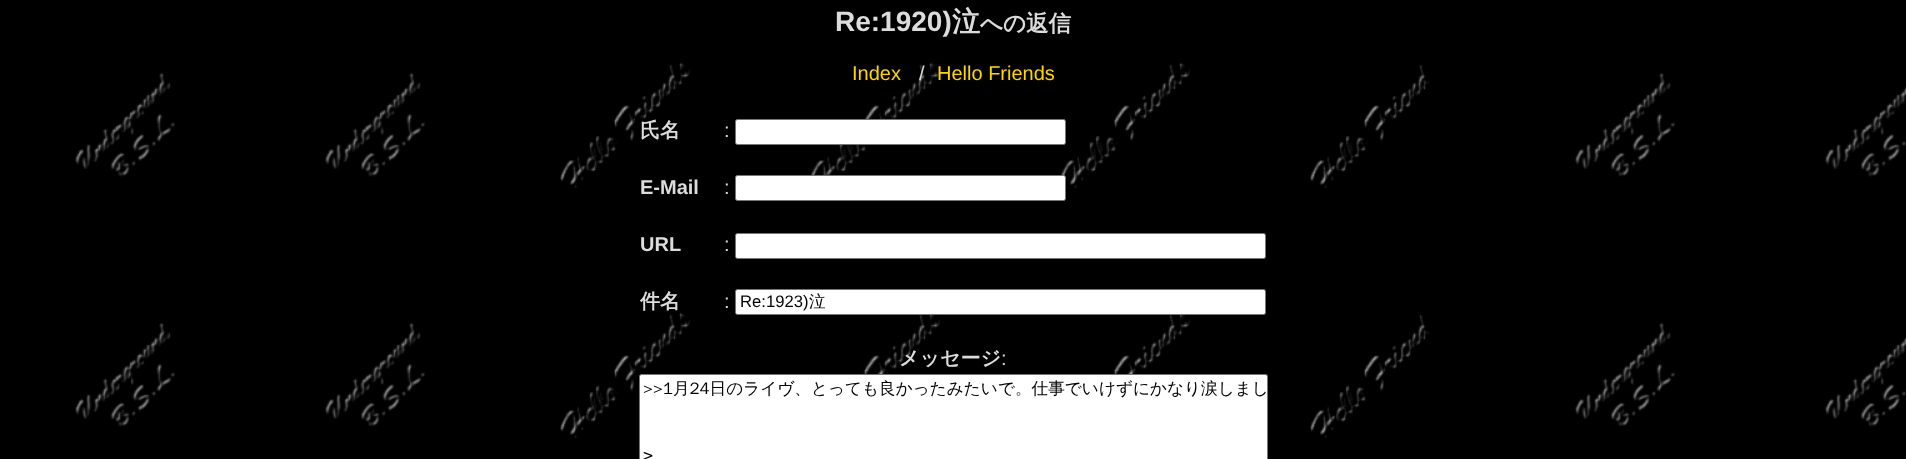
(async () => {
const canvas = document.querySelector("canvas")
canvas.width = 1906
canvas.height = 459
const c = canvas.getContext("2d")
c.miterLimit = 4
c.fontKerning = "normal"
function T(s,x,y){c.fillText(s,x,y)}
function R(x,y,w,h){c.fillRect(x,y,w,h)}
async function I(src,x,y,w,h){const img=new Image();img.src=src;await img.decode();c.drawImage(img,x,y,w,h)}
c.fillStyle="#000"
R(0,0,1906,459)
await I("1.png",75,72,1831,355)
R(575,72,850,355)
await I("2.png",560,62,869,377)
c.font="bold 28px Liberation Sans"
c.fillStyle="#dcdcdc"
T("Re:1920)",835,31)
c.font="bold 28px WenQuanYi Zen Hei"
T("泣",952,31)
c.font="bold 22.5px WenQuanYi Zen Hei"
T("への返信",980,31)
c.font="20px Liberation Sans"
c.fillStyle="#ffd700"
T("Index",852,80)
c.fillStyle="#dcdcdc"
T("/",919,80)
c.fillStyle="#ffd700"
T("Hello Friends",937,80)
c.font="bold 20px WenQuanYi Zen Hei"
c.fillStyle="#dcdcdc"
T("氏名",640,137)
c.font="20px Liberation Sans"
T(":",724,137)
c.fillStyle="#fff"
c.beginPath()
c.roundRect(735.5,119.5,330,25,2)
c.fill()
c.strokeStyle="#767676"
c.stroke()
c.font="bold 20px Liberation Sans"
c.fillStyle="#dcdcdc"
T("E-Mail",640,194)
c.font="20px Liberation Sans"
T(":",724,194)
c.fillStyle="#fff"
c.beginPath()
c.roundRect(735.5,175.5,330,25,2)
c.fill()
c.stroke()
c.font="bold 20px Liberation Sans"
c.fillStyle="#dcdcdc"
T("URL",640,251)
c.font="20px Liberation Sans"
T(":",724,251)
c.fillStyle="#fff"
c.beginPath()
c.roundRect(735.5,233.5,530,25,2)
c.fill()
c.stroke()
c.font="bold 20px WenQuanYi Zen Hei"
c.fillStyle="#dcdcdc"
T("件名",640,308)
c.font="20px Liberation Sans"
T(":",724,308)
c.fillStyle="#fff"
c.beginPath()
c.roundRect(735.5,289.5,530,25,2)
c.fill()
c.stroke()
c.font="16.65px Liberation Sans"
c.fillStyle="#000"
T("Re:1923)",740,307)
c.font="500 16.65px WenQuanYi Zen Hei"
T("泣",809,307)
c.font="bold 20px WenQuanYi Zen Hei"
c.fillStyle="#dcdcdc"
T("メッセージ",899,365)
c.font="20px Liberation Sans"
T(":",1001,365)
c.fillStyle="#fff"
c.beginPath()
c.roundRect(639.5,374.5,628,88,2)
c.fill()
c.stroke()
c.font="500 16.65px WenQuanYi Zen Hei"
c.fillStyle="#000"
T(">>1月24日のライヴ、とっても良かったみたいで。仕事でいけずにかなり涙しまし",643,394)
c.font="16.65px DejaVu Sans Mono"
T(">",643,461)
})()
